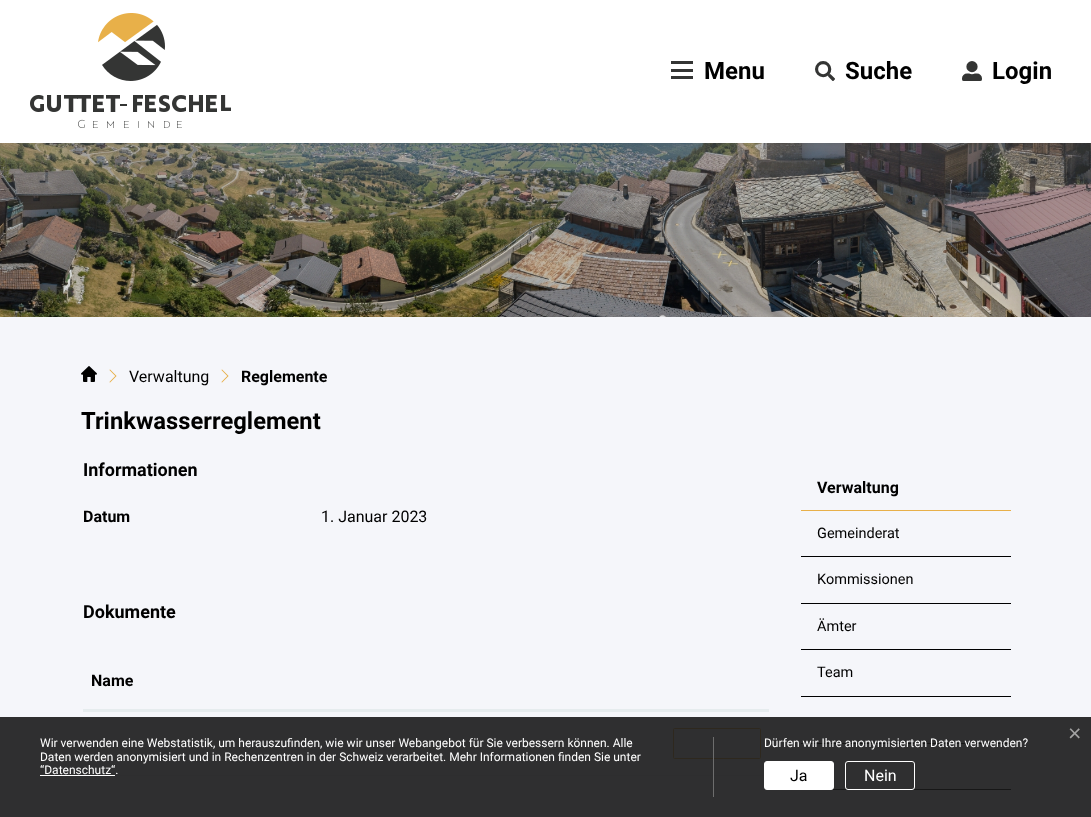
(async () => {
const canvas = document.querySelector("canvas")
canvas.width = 1091
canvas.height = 817
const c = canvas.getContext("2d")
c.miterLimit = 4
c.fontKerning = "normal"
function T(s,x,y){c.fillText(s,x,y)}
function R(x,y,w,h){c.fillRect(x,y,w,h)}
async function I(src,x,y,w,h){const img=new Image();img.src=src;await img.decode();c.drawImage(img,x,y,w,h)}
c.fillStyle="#f5f6fa"
R(0,0,1091,817)
await I("4.png",0,143,1091,174)
c.fillStyle="#00000012"
c.filter="blur(2px)"
c.beginPath()
c.rect(0,2,1091,143)
c.fill()
c.filter="none"
c.fillStyle="#fff"
R(0,0,1091,143)
await I("1.png",30,13,201,115)
c.fillStyle="#343534"
R(671,61,22,3)
R(671,69,22,3)
R(671,76,22,3)
c.font="bold 24px Roboto"
c.fillStyle="#000"
T("Menu",704,79)
await I("2.png",815,61,20,20)
T("Suche",845,79)
await I("3.png",962,61,20,20)
T("Login",992,79)
await I("5.png",81,366,16,16)
await I("6.png",109,369,8,14)
c.font="16px Roboto"
T("Verwaltung",129,382)
await I("6.png",221,369,8,14)
c.font="bold 16px Roboto"
T("Reglemente",241,382)
c.font="bold 23.75px Roboto"
T("Trinkwasserreglement",81,429)
c.font="bold 18px Roboto"
T("Informationen",83,476)
c.font="bold 16px Roboto"
T("Datum",83,522)
c.font="16px Roboto"
T("1. Januar 2023",321,522)
c.font="bold 18px Roboto"
T("Dokumente",83,618)
c.fillStyle="#e6ecee"
R(115,775,654,1)
R(83,709,686,2)
c.font="bold 16px Roboto"
c.fillStyle="#000"
T("Name",91,686)
c.fillStyle="#e6ecee"
R(83,711,686,1)
c.beginPath()
c.roundRect(673.5,728.5,87,30,1)
c.strokeStyle="#e8b049"
c.stroke()
c.fillStyle="#e8b049"
R(801,510,210,1)
c.fillStyle="#000"
T("Verwaltung",817,493)
R(801,556,210,1)
c.font="14.5px Roboto"
T("Gemeinderat",817,538)
R(801,603,210,1)
T("Kommissionen",817,584)
R(801,649,210,1)
T("Ämter",817,631)
R(801,696,210,1)
T("Team",817,677)
R(801,743,210,1)
R(831,789,180,1)
c.fillStyle="#191919e6"
R(0,717,1091,100)
c.font="23px Liberation Sans"
c.fillStyle="#a2a2a2"
T("×",1068,741)
c.fillStyle="#6d6d6d"
R(713,737,1,60)
c.font="12px Roboto"
c.fillStyle="#fff"
T("Wir verwenden eine Webstatistik, um herauszufinden, wie wir unser Webangebot für Sie verbessern können. Alle",40,747)
T("Daten werden anonymisiert und in Rechenzentren in der Schweiz verarbeitet. Mehr Informationen finden Sie unter",40,761)
T("“Datenschutz“.",40,774)
R(40,775,75,1)
T("Dürfen wir Ihre anonymisierten Daten verwenden?",764,747)
c.beginPath()
c.roundRect(764.5,761.5,69,28,2.5)
c.fill()
c.strokeStyle="#fff"
c.stroke()
c.font="16px Roboto"
c.fillStyle="#000"
T("Ja",790,781)
c.beginPath()
c.roundRect(845.5,761.5,69,28,2.5)
c.stroke()
c.fillStyle="#fff"
T("Nein",864,781)
})()
